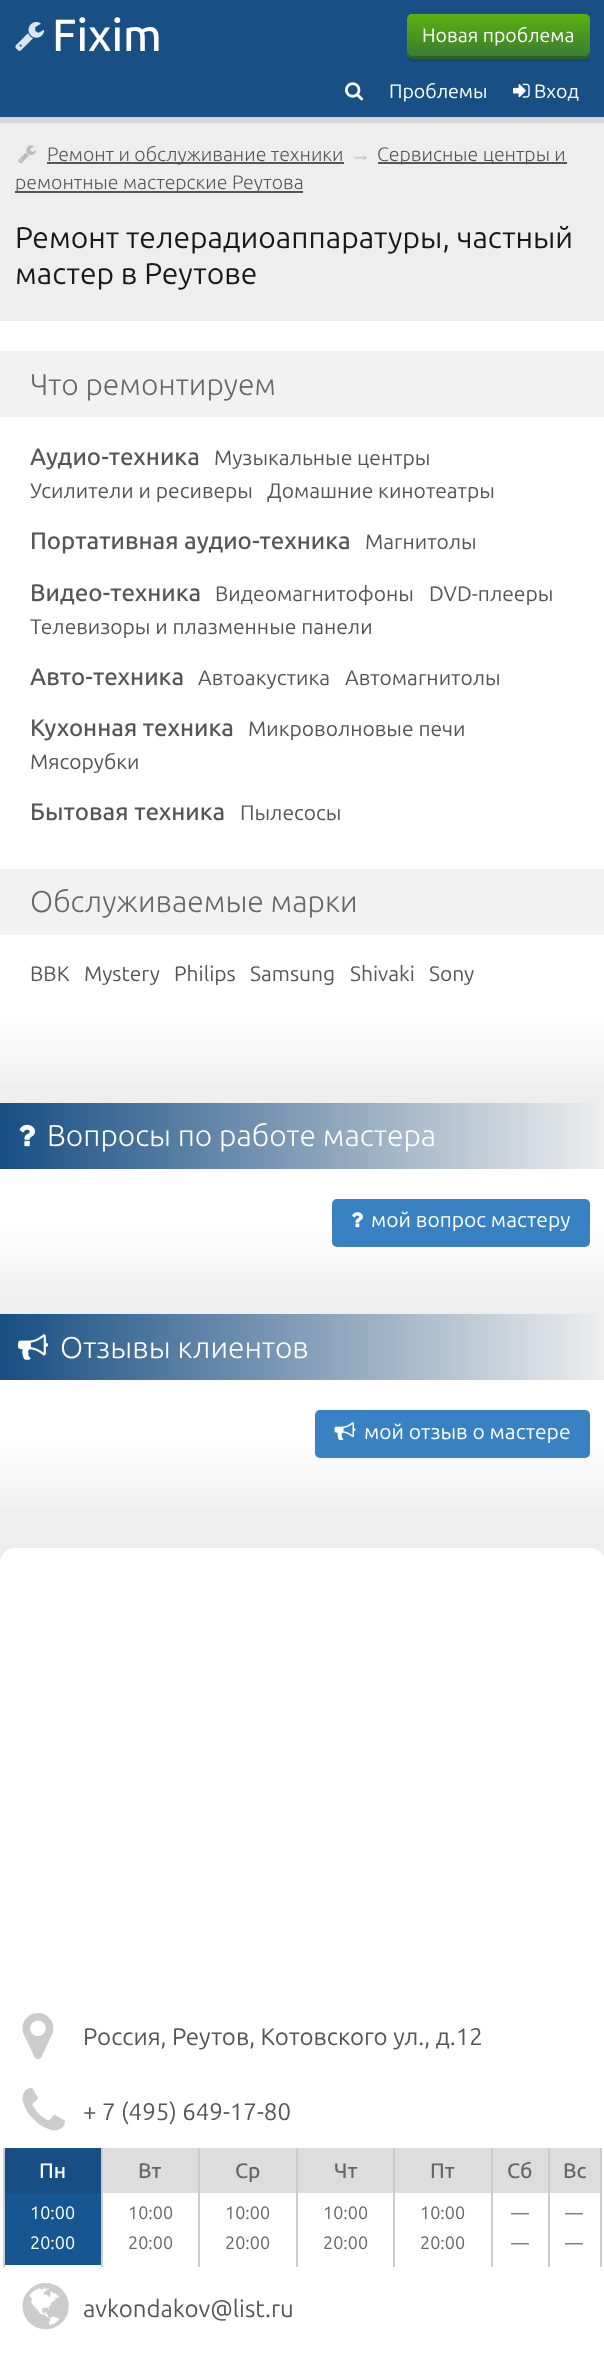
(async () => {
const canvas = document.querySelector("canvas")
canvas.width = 604
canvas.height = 2353
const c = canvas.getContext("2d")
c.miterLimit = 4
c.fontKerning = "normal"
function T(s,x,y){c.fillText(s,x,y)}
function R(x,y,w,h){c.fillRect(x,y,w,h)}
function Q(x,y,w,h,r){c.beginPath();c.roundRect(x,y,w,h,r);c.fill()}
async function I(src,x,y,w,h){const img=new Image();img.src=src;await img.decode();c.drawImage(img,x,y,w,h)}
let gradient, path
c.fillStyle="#eee"
R(0,0,604,2353)
c.fillStyle="#d6d6d6"
path = new Path2D("M0 117v6h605v-117h-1v111z")
c.fill(path)
c.fillStyle="#184f84"
R(0,0,604,117)
await I("1.png",15,22,30,29)
c.font="500 45px Ubuntu"
c.fillStyle="#fff"
T("Fixim",52,51)
c.fillStyle="#164777"
path = new Path2D("M407 56v1c0 3 2 5 5 5h173c3 0 5-2 5-5v-35v-2v34c0 2-3 4-5 4h-174c-2 0-3-1-4-2z")
c.fill(path)
gradient = c.createLinearGradient(498,13,498,59)
gradient.addColorStop(0,"#5db30a")
gradient.addColorStop(1,"#377935")
c.fillStyle = gradient
Q(407,14,183,45,5)
c.fillStyle="#00000033"
path = new Path2D("M407 53v1c0 3 2 5 5 5h173c3 0 5-2 5-5v-3c0 2-3 5-5 5h-174z")
c.fill(path)
c.font="19.5px Ubuntu"
c.fillStyle="#fff"
T("Новая проблема",422,42)
await I("2.png",345,82,19,19)
T("Проблемы",389,98)
await I("3.png",513,83,17,15)
T("Вход",534,98)
await I("4.png",18,145,18,19)
c.fillStyle="#555"
R(47,162,297,2)
c.font="300 19.5px Ubuntu"
T("Ремонт и обслуживание техники",47,161)
c.font="19.5px Liberation Sans"
c.fillStyle="#bbb"
T("→",351,161)
c.fillStyle="#555"
R(378,162,189,2)
c.font="300 19.5px Ubuntu"
T("Сервисные центры и",377,161)
R(15,191,288,2)
T("ремонтные мастерские Реутова",15,189)
c.font="30px Ubuntu"
c.fillStyle="#181818"
T("Ремонт телерадиоаппаратуры, частный",15,248)
T("мастер в Реутове",15,284)
c.fillStyle="#fff"
R(0,321,604,30)
R(0,417,604,452)
c.fillStyle="#f2f2f2"
R(0,351,604,66)
c.font="300 30px Ubuntu"
c.fillStyle="#666"
T("Что ремонтируем",30,395)
c.font="500 24px Ubuntu"
c.fillStyle="#555"
T("Аудио-техника",30,465)
c.font="21px Ubuntu"
T("Музыкальные центры",214,465)
T("Усилители и ресиверы",30,498)
T("Домашние кинотеатры",267,498)
c.font="500 24px Ubuntu"
T("Портативная аудио-техника",30,549)
c.font="21px Ubuntu"
T("Магнитолы",365,549)
c.font="500 24px Ubuntu"
T("Видео-техника",30,601)
c.font="21px Ubuntu"
T("Видеомагнитофоны",215,601)
T("DVD-плееры",429,601)
T("Телевизоры и плазменные панели",30,634)
c.font="500 24px Ubuntu"
T("Авто-техника",30,685)
c.font="21px Ubuntu"
T("Автоакустика",198,685)
T("Автомагнитолы",345,685)
c.font="500 24px Ubuntu"
T("Кухонная техника",30,736)
c.font="21px Ubuntu"
T("Микроволновые печи",248,736)
T("Мясорубки",30,769)
c.font="500 24px Ubuntu"
T("Бытовая техника",30,820)
c.font="21px Ubuntu"
T("Пылесосы",240,820)
c.fillStyle="#fff"
R(0,935,604,78)
c.fillStyle="#f2f2f2"
R(0,869,604,66)
c.font="300 30px Ubuntu"
c.fillStyle="#666"
T("Обслуживаемые марки",30,912)
c.font="21px Ubuntu"
c.fillStyle="#555"
T("BBK",30,981)
T("Mystery",84,981)
T("Philips",174,981)
T("Samsung",250,981)
T("Shivaki",350,981)
T("Sony",429,981)
gradient = c.createLinearGradient(302,1013,302,1103)
gradient.addColorStop(0,"#fff")
gradient.addColorStop(1,"#ededed")
c.fillStyle = gradient
R(0,1013,604,73)
c.fillStyle="#fff"
R(0,1169,604,55)
gradient = c.createLinearGradient(0,1136,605,1136)
gradient.addColorStop(0,"#174e83")
gradient.addColorStop(1,"#eee")
c.fillStyle = gradient
R(0,1103,598,66)
await I("5.png",19,1124,17,23)
c.font="300 30px Ubuntu"
c.fillStyle="#fff"
T("Вопросы по работе мастера",47,1146)
gradient = c.createLinearGradient(302,1224,302,1314)
gradient.addColorStop(0,"#fff")
gradient.addColorStop(1,"#ededed")
c.fillStyle = gradient
R(0,1224,604,73)
c.fillStyle="#3881c2"
Q(332,1199,258,48,5)
await I("6.png",352,1212,11,16)
c.font="21px Ubuntu"
c.fillStyle="#fff"
T("мой вопрос мастеру",371,1227)
R(0,1380,604,56)
gradient = c.createLinearGradient(0,1347,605,1347)
gradient.addColorStop(0,"#174e83")
gradient.addColorStop(1,"#eee")
c.fillStyle = gradient
R(0,1314,598,66)
await I("7.png",18,1334,30,26)
c.font="300 30px Ubuntu"
c.fillStyle="#fff"
T("Отзывы клиентов",60,1358)
gradient = c.createLinearGradient(302,1436,302,1526)
gradient.addColorStop(0,"#fff")
gradient.addColorStop(1,"#ededed")
c.fillStyle = gradient
R(0,1436,604,73)
c.fillStyle="#3881c2"
Q(315,1410,275,48,5)
await I("8.png",334,1422,22,19)
c.font="21px Ubuntu"
c.fillStyle="#fff"
T("мой отзыв о мастере",364,1439)
Q(0,1548,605,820,15)
await I("9.png",22,2013,32,47)
c.font="24px Ubuntu"
c.fillStyle="#555"
T("Россия, Реутов, Котовского ул., д.12",83,2045)
await I("10.png",22,2088,43,43)
T("+ 7 (495) 649-17-80",83,2120)
c.fillStyle="#174e83"
R(5,2148,96,45)
c.font="500 21px Ubuntu"
c.fillStyle="#fff"
T("Пн",39,2178)
c.fillStyle="#ddd"
R(103,2148,95,45)
c.fillStyle="#666"
T("Вт",138,2178)
c.fillStyle="#ddd"
R(200,2148,96,45)
c.fillStyle="#666"
T("Ср",235,2178)
c.fillStyle="#ddd"
R(298,2148,95,45)
c.fillStyle="#666"
T("Чт",334,2178)
c.fillStyle="#ddd"
R(395,2148,96,45)
c.fillStyle="#666"
T("Пт",430,2178)
c.fillStyle="#ddd"
R(493,2148,55,45)
c.fillStyle="#666"
T("Сб",507,2178)
c.fillStyle="#ddd"
R(550,2148,50,45)
c.fillStyle="#666"
T("Вс",563,2178)
c.fillStyle="#165693"
R(5,2193,96,72)
c.font="18px Ubuntu"
c.fillStyle="#fff"
T("10:00",30,2219)
c.fillStyle="#666"
T("10:00",128,2219)
T("10:00",225,2219)
T("10:00",323,2219)
T("10:00",420,2219)
T("—",511,2219)
T("—",565,2219)
c.fillStyle="#ccc"
R(3,2148,2,119)
c.fillStyle="#fff"
T("20:00",30,2249)
c.fillStyle="#ccc"
R(101,2148,2,119)
c.fillStyle="#666"
T("20:00",128,2249)
c.fillStyle="#ccc"
R(198,2148,2,119)
c.fillStyle="#666"
T("20:00",225,2249)
c.fillStyle="#ccc"
R(296,2148,2,119)
c.fillStyle="#666"
T("20:00",323,2249)
c.fillStyle="#ccc"
R(393,2148,2,119)
c.fillStyle="#666"
T("20:00",420,2249)
c.fillStyle="#ccc"
R(491,2148,2,119)
c.fillStyle="#666"
T("—",511,2249)
c.fillStyle="#ccc"
R(600,2148,2,119)
R(548,2148,2,119)
c.fillStyle="#666"
T("—",565,2249)
await I("11.png",22,2283,47,47)
c.font="24px Ubuntu"
c.fillStyle="#555"
T("avkondakov@list.ru",83,2317)
})()
